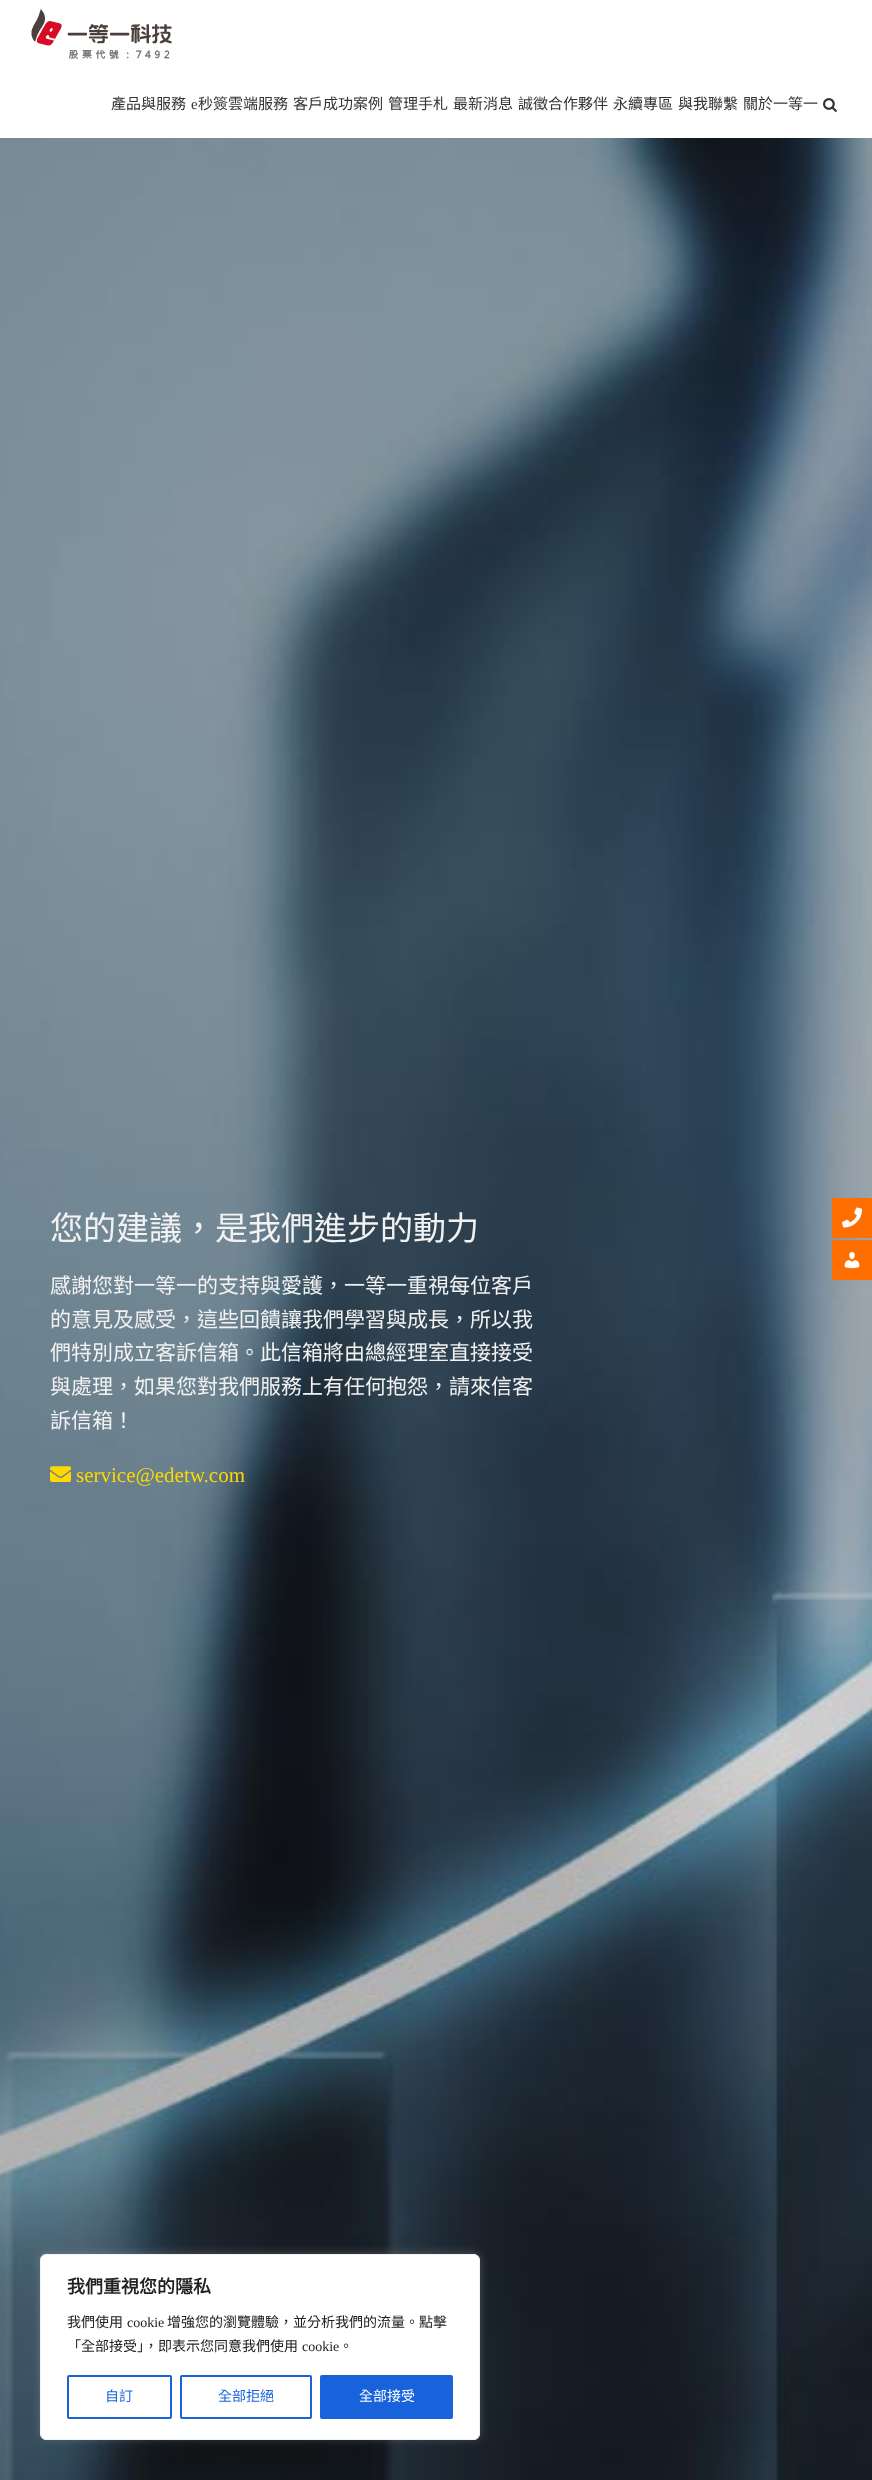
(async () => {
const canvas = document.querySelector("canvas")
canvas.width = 872
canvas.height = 2480
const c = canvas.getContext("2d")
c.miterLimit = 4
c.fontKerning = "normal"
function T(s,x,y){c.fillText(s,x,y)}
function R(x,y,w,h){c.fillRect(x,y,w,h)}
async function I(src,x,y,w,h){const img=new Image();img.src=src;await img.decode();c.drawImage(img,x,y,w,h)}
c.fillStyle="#fff"
R(0,0,872,2480)
await I("1.png",31,9,141,50)
c.font="15px Noto Sans CJK TC"
c.fillStyle="#333"
T("產品與服務",111,109)
c.font="15px Liberation Serif"
T("e",191,109)
c.font="15px Noto Sans CJK TC"
T("秒簽雲端服務",198,109)
T("客戶成功案例",293,109)
T("管理手札",388,109)
T("最新消息",453,109)
T("誠徵合作夥伴",518,109)
T("永續專區",613,109)
T("與我聯繫",678,109)
T("關於一等一",743,109)
await I("2.png",823,98,14,14)
await I("3.png",0,138,872,2342)
c.font="33px Noto Sans CJK TC"
c.fillStyle="#f2f2f2"
T("您的建議，是我們進步的動力",50,1240)
c.font="21px Noto Sans CJK TC"
T("感謝您對一等一的支持與愛護，一等一重視每位客戶",50,1293)
T("的意見及感受，這些回饋讓我們學習與成長，所以我",50,1327)
T("們特別成立客訴信箱。此信箱將由總經理室直接接受",50,1360)
T("與處理，如果您對我們服務上有任何抱怨，請來信客",50,1394)
T("訴信箱！",50,1428)
await I("4.png",50,1466,21,16)
c.font="21px Liberation Serif"
c.fillStyle="#ffd800"
T("service@edetw.com",76,1482)
c.fillStyle="#ff6e01"
R(832,1198,40,40)
await I("5.png",842,1207,20,21)
R(832,1240,40,40)
await I("6.png",844,1252,16,17)
c.fillStyle="#acabab4d"
c.filter="blur(5px)"
c.beginPath()
c.roundRect(40,2253,440,186,6)
c.fill()
c.filter="none"
c.fillStyle="#fff"
c.beginPath()
c.roundRect(40.5,2254.5,439,185,5.5)
c.fill()
c.strokeStyle="#f4f4f4"
c.stroke()
c.font="bold 18px Noto Sans CJK TC"
c.fillStyle="#212121"
T("我們重視您的隱私",67,2293)
c.font="14px Noto Sans CJK TC"
T("我們使用",67,2327)
c.font="14px Liberation Serif"
T("cookie",127,2327)
c.font="14px Noto Sans CJK TC"
T("增強您的瀏覽體驗，並分析我們的流量。點擊",167,2327)
T("「全部接受」，即表示您同意我們使用",67,2351)
c.font="14px Liberation Serif"
T("cookie",302,2351)
c.font="14px Noto Sans CJK TC"
T("。",339,2351)
c.beginPath()
c.roundRect(68,2376,103,42,1)
c.strokeStyle="#1863dc"
c.lineWidth=2
c.stroke()
c.fillStyle="#1863dc"
T("自訂",105,2401)
c.beginPath()
c.roundRect(181,2376,130,42,1)
c.stroke()
T("全部拒絕",218,2401)
c.beginPath()
c.roundRect(321,2376,131,42,1)
c.fill()
c.stroke()
c.fillStyle="#fff"
T("全部接受",359,2401)
})()
